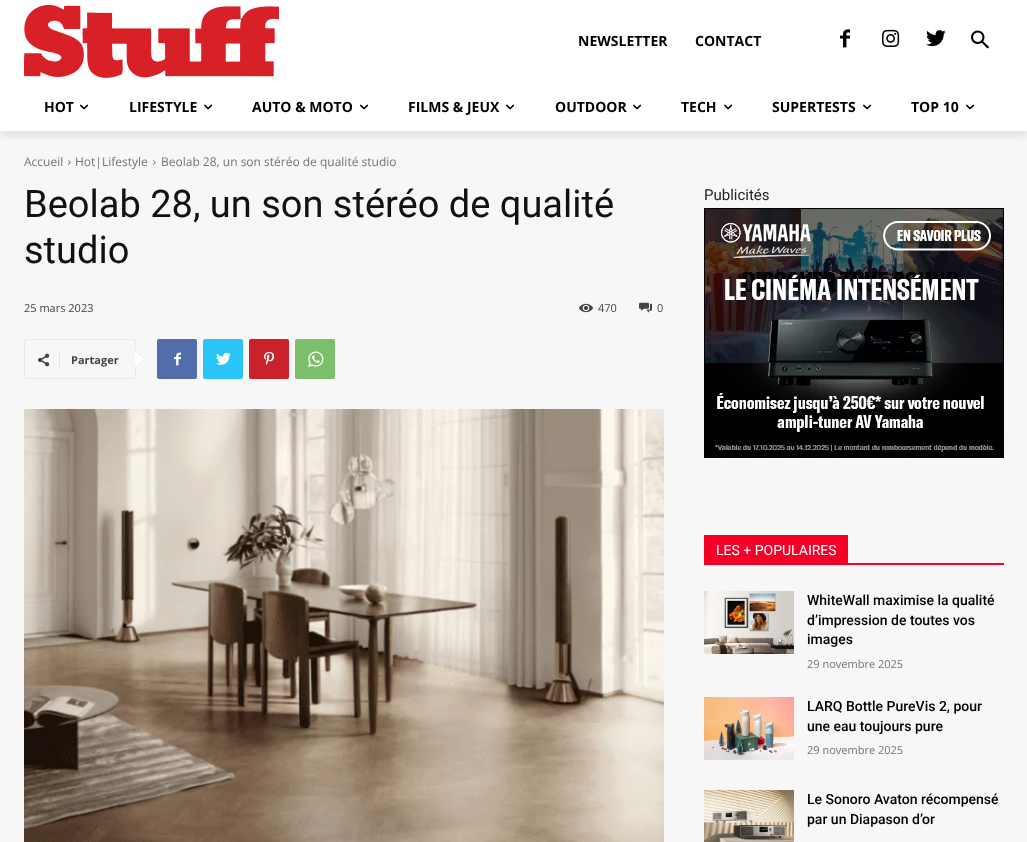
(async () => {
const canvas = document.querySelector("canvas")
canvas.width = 1027
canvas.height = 842
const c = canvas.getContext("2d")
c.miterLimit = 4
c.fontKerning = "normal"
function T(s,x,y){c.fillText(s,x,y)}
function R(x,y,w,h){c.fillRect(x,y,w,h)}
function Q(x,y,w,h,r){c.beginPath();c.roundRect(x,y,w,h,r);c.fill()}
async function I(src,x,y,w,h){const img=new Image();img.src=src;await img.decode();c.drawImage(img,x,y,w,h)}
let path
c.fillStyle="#fff"
R(0,0,1027,842)
await I("1.png",24,5,255,73)
c.font="bold 14px Open Sans"
c.fillStyle="#000"
T("NEWSLETTER",578,46)
T("CONTACT",695,46)
await I("2.png",840,29,10,19)
await I("3.png",882,29,18,18)
await I("4.png",926,30,20,17)
await I("5.png",971,30,18,19)
c.fillStyle="#f7f7f7"
R(0,131,1027,711)
c.save()
c.beginPath()
c.rect(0,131,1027,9)
c.clip()
c.fillStyle="#00000014"
c.filter="blur(4px)"
c.beginPath()
c.rect(1,89,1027,48)
c.fill()
c.filter="none"
c.restore()
c.fillStyle="#000"
T("HOT",44,112)
await I("6.png",80,104,9,6)
T("LIFESTYLE",129,112)
await I("6.png",204,104,9,6)
T("AUTO & MOTO",252,112)
await I("6.png",360,104,9,6)
T("FILMS & JEUX",408,112)
await I("6.png",506,104,9,6)
T("OUTDOOR",555,112)
await I("6.png",633,104,9,6)
T("TECH",681,112)
await I("6.png",724,104,9,6)
T("SUPERTESTS",772,112)
await I("6.png",863,104,9,6)
T("TOP 10",911,112)
await I("6.png",966,104,9,6)
c.font="12px Open Sans"
c.fillStyle="#747474"
T("Accueil",24,166)
await I("7.png",68,160,3,5)
T("Hot|Lifestyle",75,166)
await I("7.png",153,160,3,5)
T("Beolab 28, un son stéréo de qualité studio",161,166)
c.font="38px Roboto"
c.fillStyle="#111"
T("Beolab 28, un son stéréo de qualité",24,217)
T("studio",24,263)
c.font="11px Open Sans"
c.fillStyle="#444"
T("25 mars 2023",24,312)
await I("8.png",579,303,14,10)
T("470",598,312)
await I("9.png",639,302,13,11)
T("0",657,312)
c.beginPath()
c.roundRect(24.5,339.5,111,39,1.5)
c.strokeStyle="#e9e9e9"
c.stroke()
c.fillStyle="#e9e9e9"
path = new Path2D("M135 368v-18l11 9z")
c.fill(path)
await I("10.png",38,353,12,14)
c.fillStyle="#e3e3e3"
R(59,352,1,16)
c.font="bold 11px Open Sans"
c.fillStyle="#444"
T("Partager",71,364)
c.fillStyle="#fff"
path = new Path2D("M135 367v-16l10 8z")
c.fill(path)
c.fillStyle="#516eab"
Q(157,339,40,40,2)
await I("11.png",174,352,7,14)
c.fillStyle="#29c5f6"
Q(203,339,40,40,2)
await I("12.png",216,352,15,13)
c.fillStyle="#ca212a"
Q(249,339,40,40,2)
await I("13.png",264,351,11,14)
c.fillStyle="#7bbf6a"
Q(295,339,40,40,2)
await I("14.png",308,351,16,16)
await I("15.png",24,409,640,433)
c.font="15px Roboto"
c.fillStyle="#222"
T("Publicités",704,200)
await I("16.png",704,208,300,250)
c.fillStyle="#f40028"
R(704,563,300,2)
R(704,535,144,28)
c.font="14px Roboto"
c.fillStyle="#fff"
T("LES + POPULAIRES",716,555)
await I("17.png",704,591,90,63)
c.font="500 14px Roboto"
c.fillStyle="#000"
T("WhiteWall maximise la qualité",807,605)
T("d’impression de toutes vos",807,625)
T("images",807,644)
c.font="11px Open Sans"
c.fillStyle="#747474"
T("29 novembre 2025",807,668)
await I("18.png",704,697,90,63)
c.font="500 14px Roboto"
c.fillStyle="#000"
T("LARQ Bottle PureVis 2, pour",807,711)
T("une eau toujours pure",807,731)
c.font="11px Open Sans"
c.fillStyle="#747474"
T("29 novembre 2025",807,754)
await I("19.png",704,790,90,52)
c.font="500 14px Roboto"
c.fillStyle="#000"
T("Le Sonoro Avaton récompensé",807,804)
T("par un Diapason d’or",807,824)
})()
